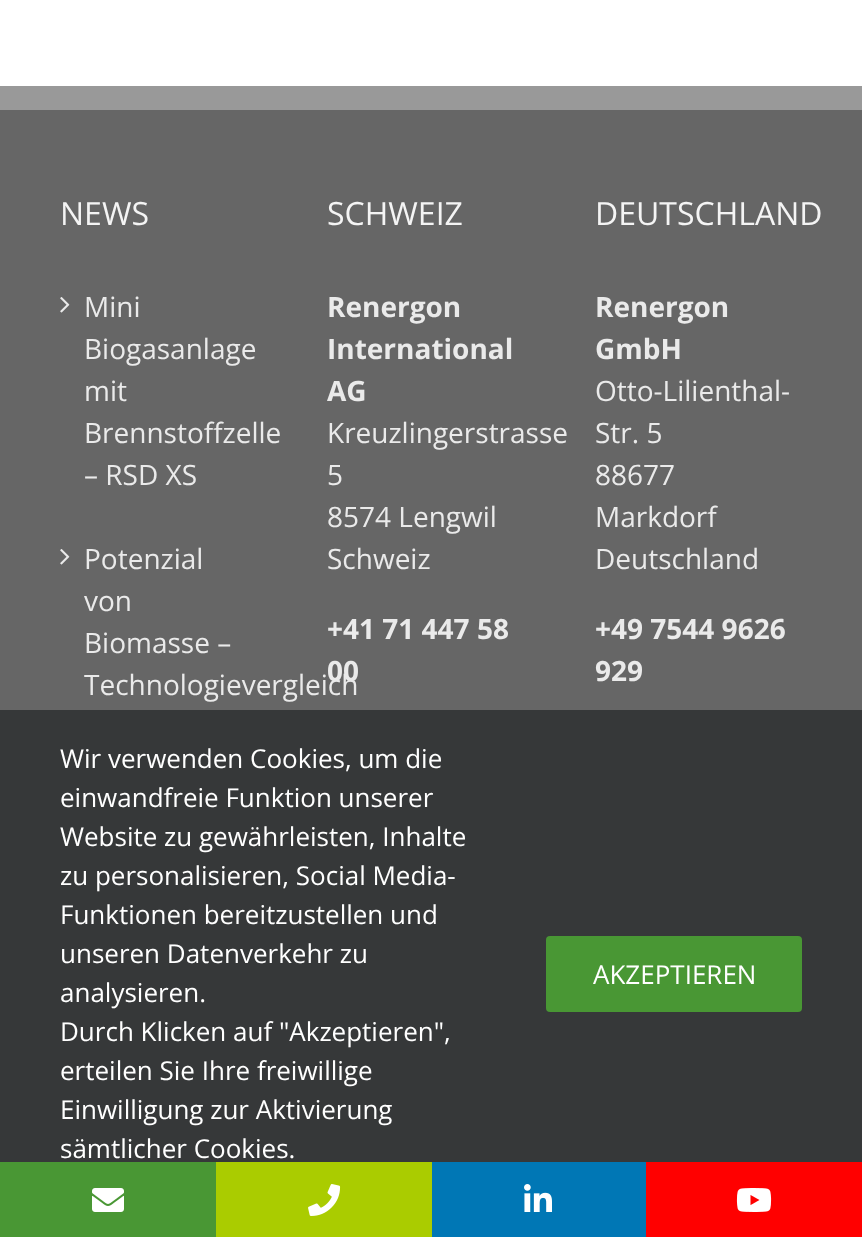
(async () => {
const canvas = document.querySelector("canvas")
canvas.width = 862
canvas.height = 1237
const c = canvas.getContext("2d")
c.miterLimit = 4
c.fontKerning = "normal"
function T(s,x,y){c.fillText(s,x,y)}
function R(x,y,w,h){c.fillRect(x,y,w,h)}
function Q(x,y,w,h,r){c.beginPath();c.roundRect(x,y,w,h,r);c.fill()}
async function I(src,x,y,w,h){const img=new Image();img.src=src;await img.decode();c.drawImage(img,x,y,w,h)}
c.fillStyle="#fff"
R(0,0,862,1237)
c.fillStyle="#666"
R(0,110,862,600)
c.fillStyle="#999"
R(0,86,862,24)
c.font="32px Open Sans"
c.fillStyle="#f4f4f4"
T("NEWS",60,225)
await I("1.png",60,297,10,16)
c.font="28px Open Sans"
c.fillStyle="#eaeaea"
T("Mini",84,317)
T("Biogasanlage",84,359)
T("mit",84,401)
T("Brennstoffzelle",84,443)
T("– RSD XS",84,485)
await I("1.png",60,549,10,16)
T("Potenzial",84,569)
T("von",84,611)
T("Biomasse –",84,653)
T("Technologievergleich",84,695)
c.font="32px Open Sans"
c.fillStyle="#f4f4f4"
T("SCHWEIZ",327,225)
c.font="bold 28px Open Sans"
c.fillStyle="#eaeaea"
T("Renergon",327,317)
T("International",327,359)
T("AG",327,401)
c.font="28px Open Sans"
T("Kreuzlingerstrasse",327,443)
T("5",327,485)
T("8574 Lengwil",327,527)
T("Schweiz",327,569)
c.font="bold 28px Open Sans"
T("+41 71 447 58",327,639)
T("00",327,681)
c.font="32px Open Sans"
c.fillStyle="#f4f4f4"
T("DEUTSCHLAND",595,225)
c.font="bold 28px Open Sans"
c.fillStyle="#eaeaea"
T("Renergon",595,317)
T("GmbH",595,359)
c.font="28px Open Sans"
T("Otto-Lilienthal-",595,401)
T("Str. 5",595,443)
T("88677",595,485)
T("Markdorf",595,527)
T("Deutschland",595,569)
c.font="bold 28px Open Sans"
T("+49 7544 9626",595,639)
T("929",595,681)
c.fillStyle="#363839"
R(0,710,862,452)
c.font="26px Open Sans"
c.fillStyle="#fff"
T("Wir verwenden Cookies, um die",60,768)
T("einwandfreie Funktion unserer",60,807)
T("Website zu gewährleisten, Inhalte",60,846)
T("zu personalisieren, Social Media-",60,885)
T("Funktionen bereitzustellen und",60,924)
T("unseren Datenverkehr zu",60,963)
T("analysieren.",60,1002)
T("Durch Klicken auf \"Akzeptieren\",",60,1041)
T("erteilen Sie Ihre freiwillige",60,1080)
T("Einwilligung zur Aktivierung",60,1119)
T("sämtlicher Cookies.",60,1158)
c.fillStyle="#499734"
Q(546,936,256,76,4)
c.fillStyle="#fff"
T("AKZEPTIEREN",593,984)
c.fillStyle="#499734"
R(0,1162,216,75)
await I("2.png",92,1188,32,24)
c.fillStyle="#ac0"
R(216,1162,216,75)
await I("3.png",308,1184,33,32)
c.fillStyle="#0077b5"
R(432,1162,214,75)
await I("4.png",524,1184,28,28)
c.fillStyle="#f00"
R(646,1162,216,75)
await I("5.png",736,1188,36,24)
})()
